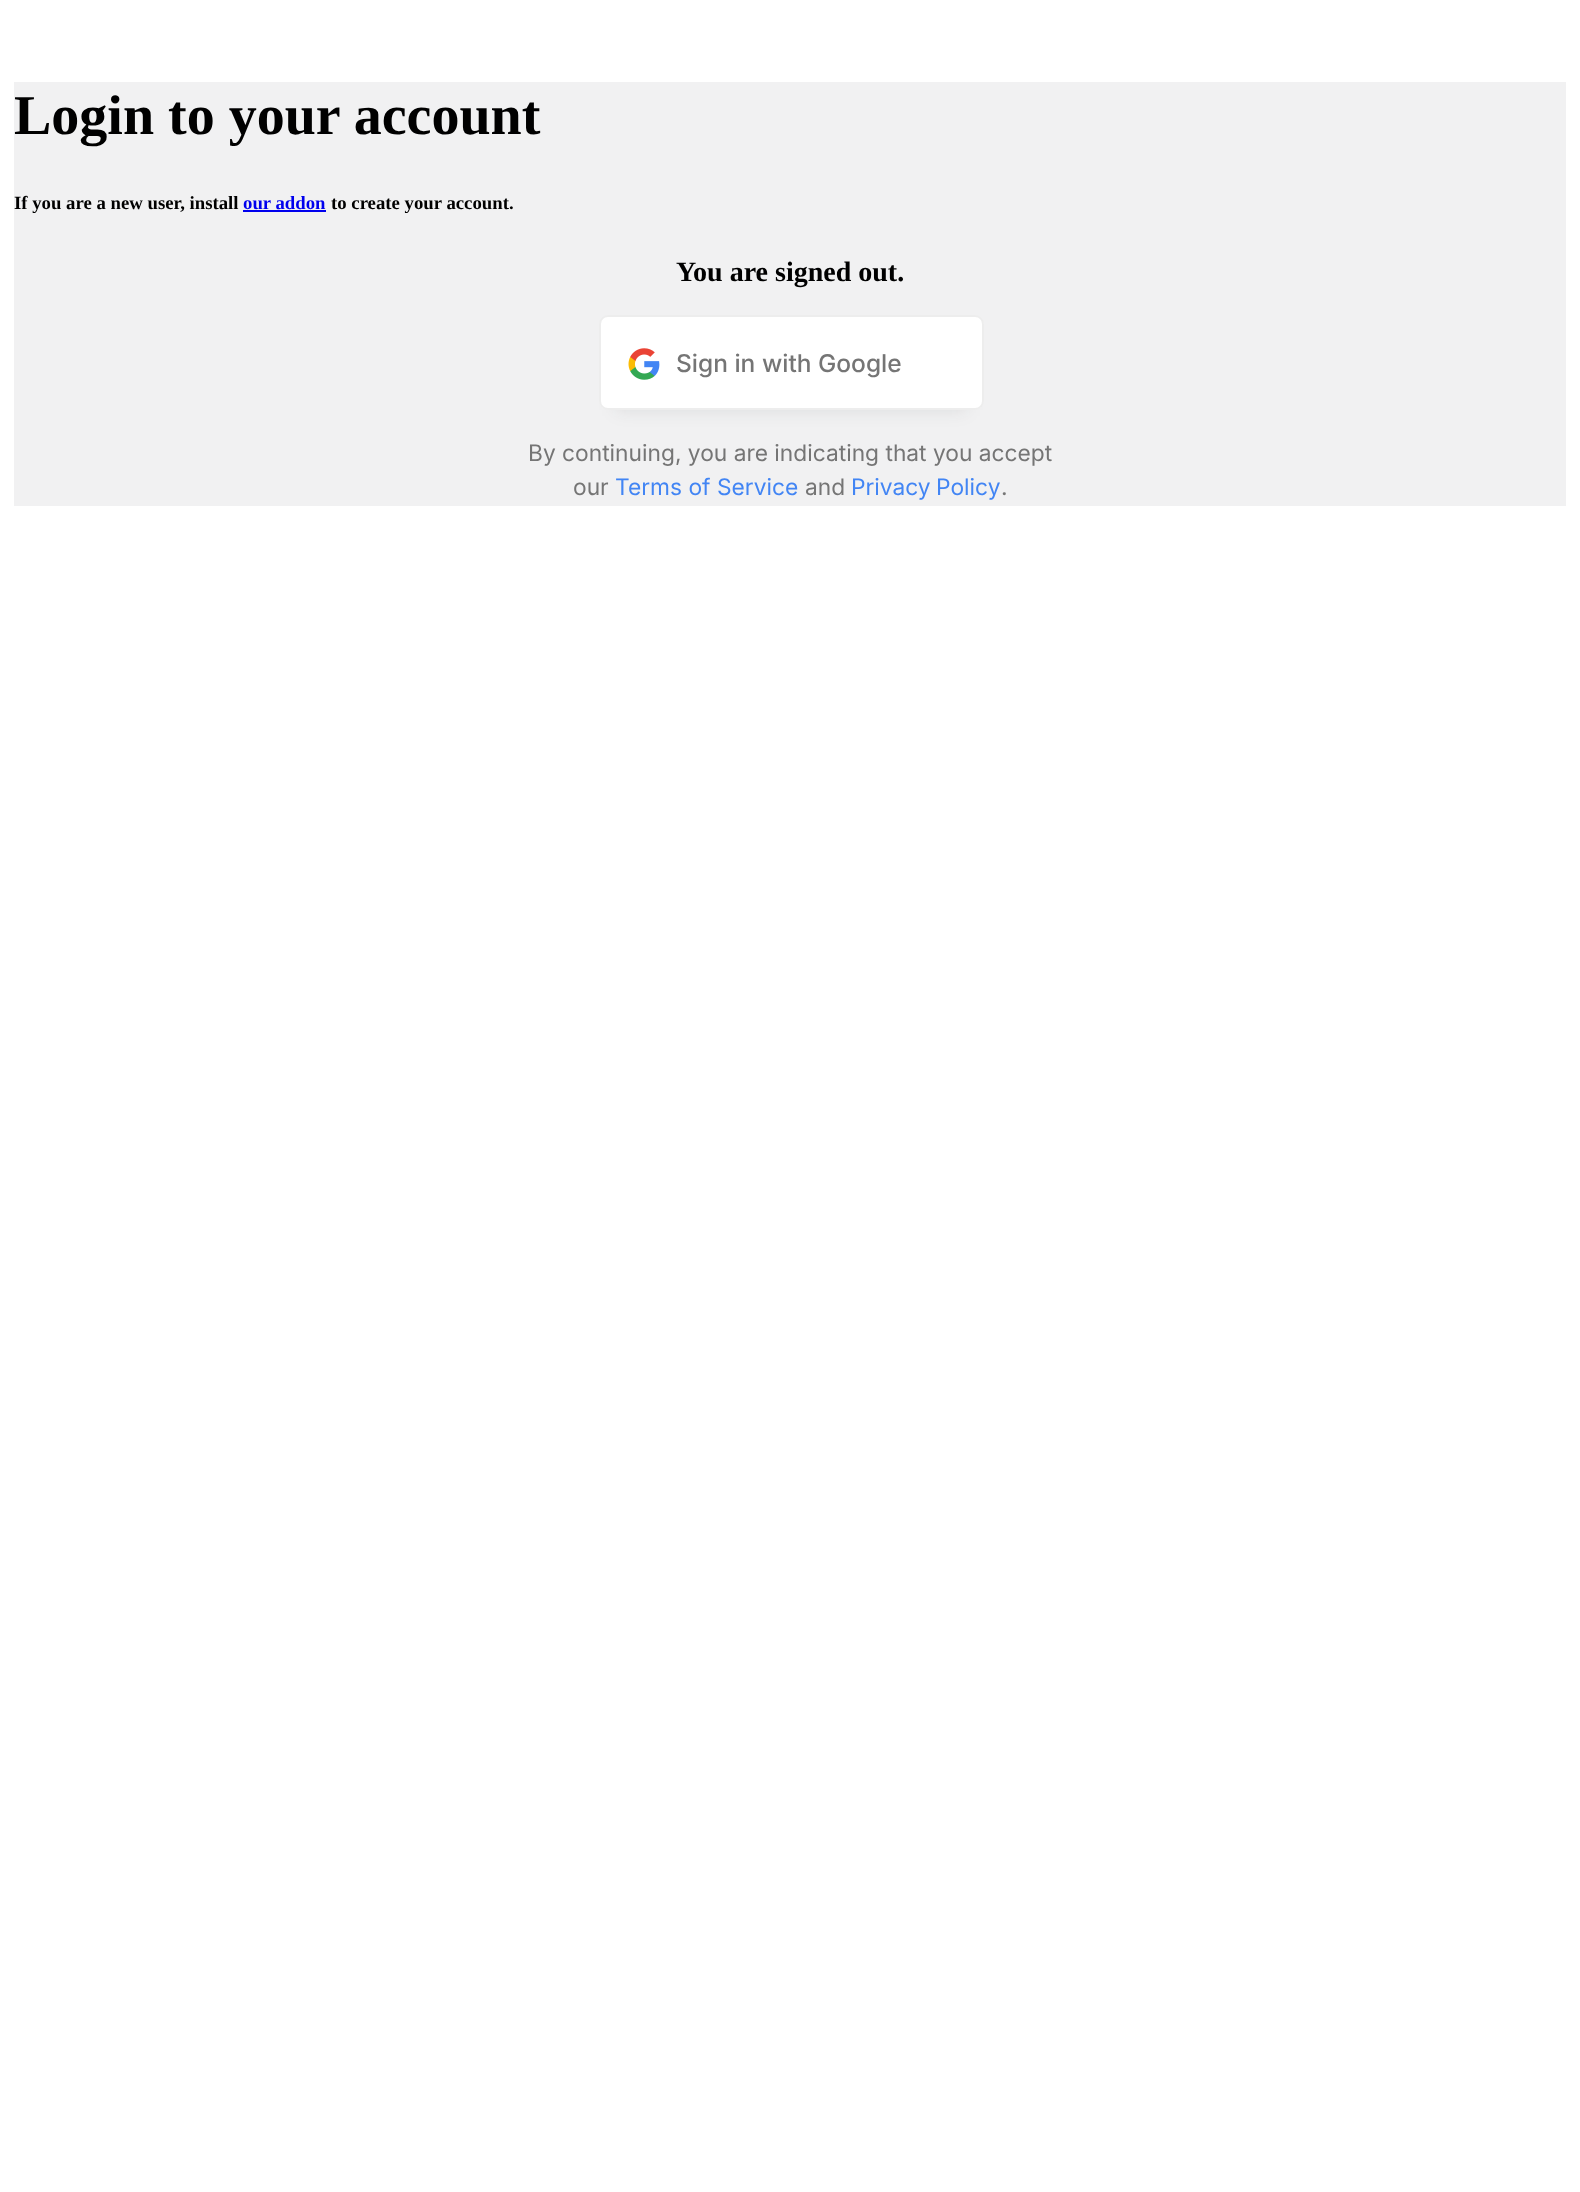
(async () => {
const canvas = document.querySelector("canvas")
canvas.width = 1580
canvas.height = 2192
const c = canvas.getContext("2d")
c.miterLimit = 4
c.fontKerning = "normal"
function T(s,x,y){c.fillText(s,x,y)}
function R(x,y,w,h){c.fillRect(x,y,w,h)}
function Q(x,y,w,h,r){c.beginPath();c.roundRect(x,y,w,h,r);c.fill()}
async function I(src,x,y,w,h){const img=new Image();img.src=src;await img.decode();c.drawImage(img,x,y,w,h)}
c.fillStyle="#fff"
R(0,0,1580,2192)
c.fillStyle="#f1f1f2"
R(14,82,1552,424)
c.font="bold 56px Liberation Serif"
c.fillStyle="#000"
T("Login to your account",14,134)
c.font="bold 18.75px Liberation Serif"
T("If you are a new user, install",14,209)
c.fillStyle="#00e"
T("our addon",243,209)
R(243,210,83,2)
c.fillStyle="#000"
T("to create your account.",331,209)
c.font="bold 28px Liberation Serif"
T("You are signed out.",676,281)
c.fillStyle="#2123261a"
c.filter="blur(9px)"
c.beginPath()
c.rect(616,350,350,60)
c.fill()
c.filter="none"
c.fillStyle="#fff"
Q(599,315,385,95,9)
c.beginPath()
c.roundRect(600,316,383,93,8)
c.strokeStyle="#00000012"
c.lineWidth=2
c.stroke()
await I("1.png",628,348,32,32)
c.font="500 24.5px Inter"
c.fillStyle="#757575"
T("Sign in with Google",676,372)
c.font="22.75px Inter"
T("By continuing, you are indicating that you accept",528,461)
T("our",573,495)
c.fillStyle="#4285f4"
T("Terms of Service",615,495)
c.fillStyle="#757575"
T("and",805,495)
c.wordSpacing="-1px"
c.fillStyle="#4285f4"
T("Privacy Policy",851,495)
c.wordSpacing="0px"
c.fillStyle="#757575"
T(".",1001,495)
})()
